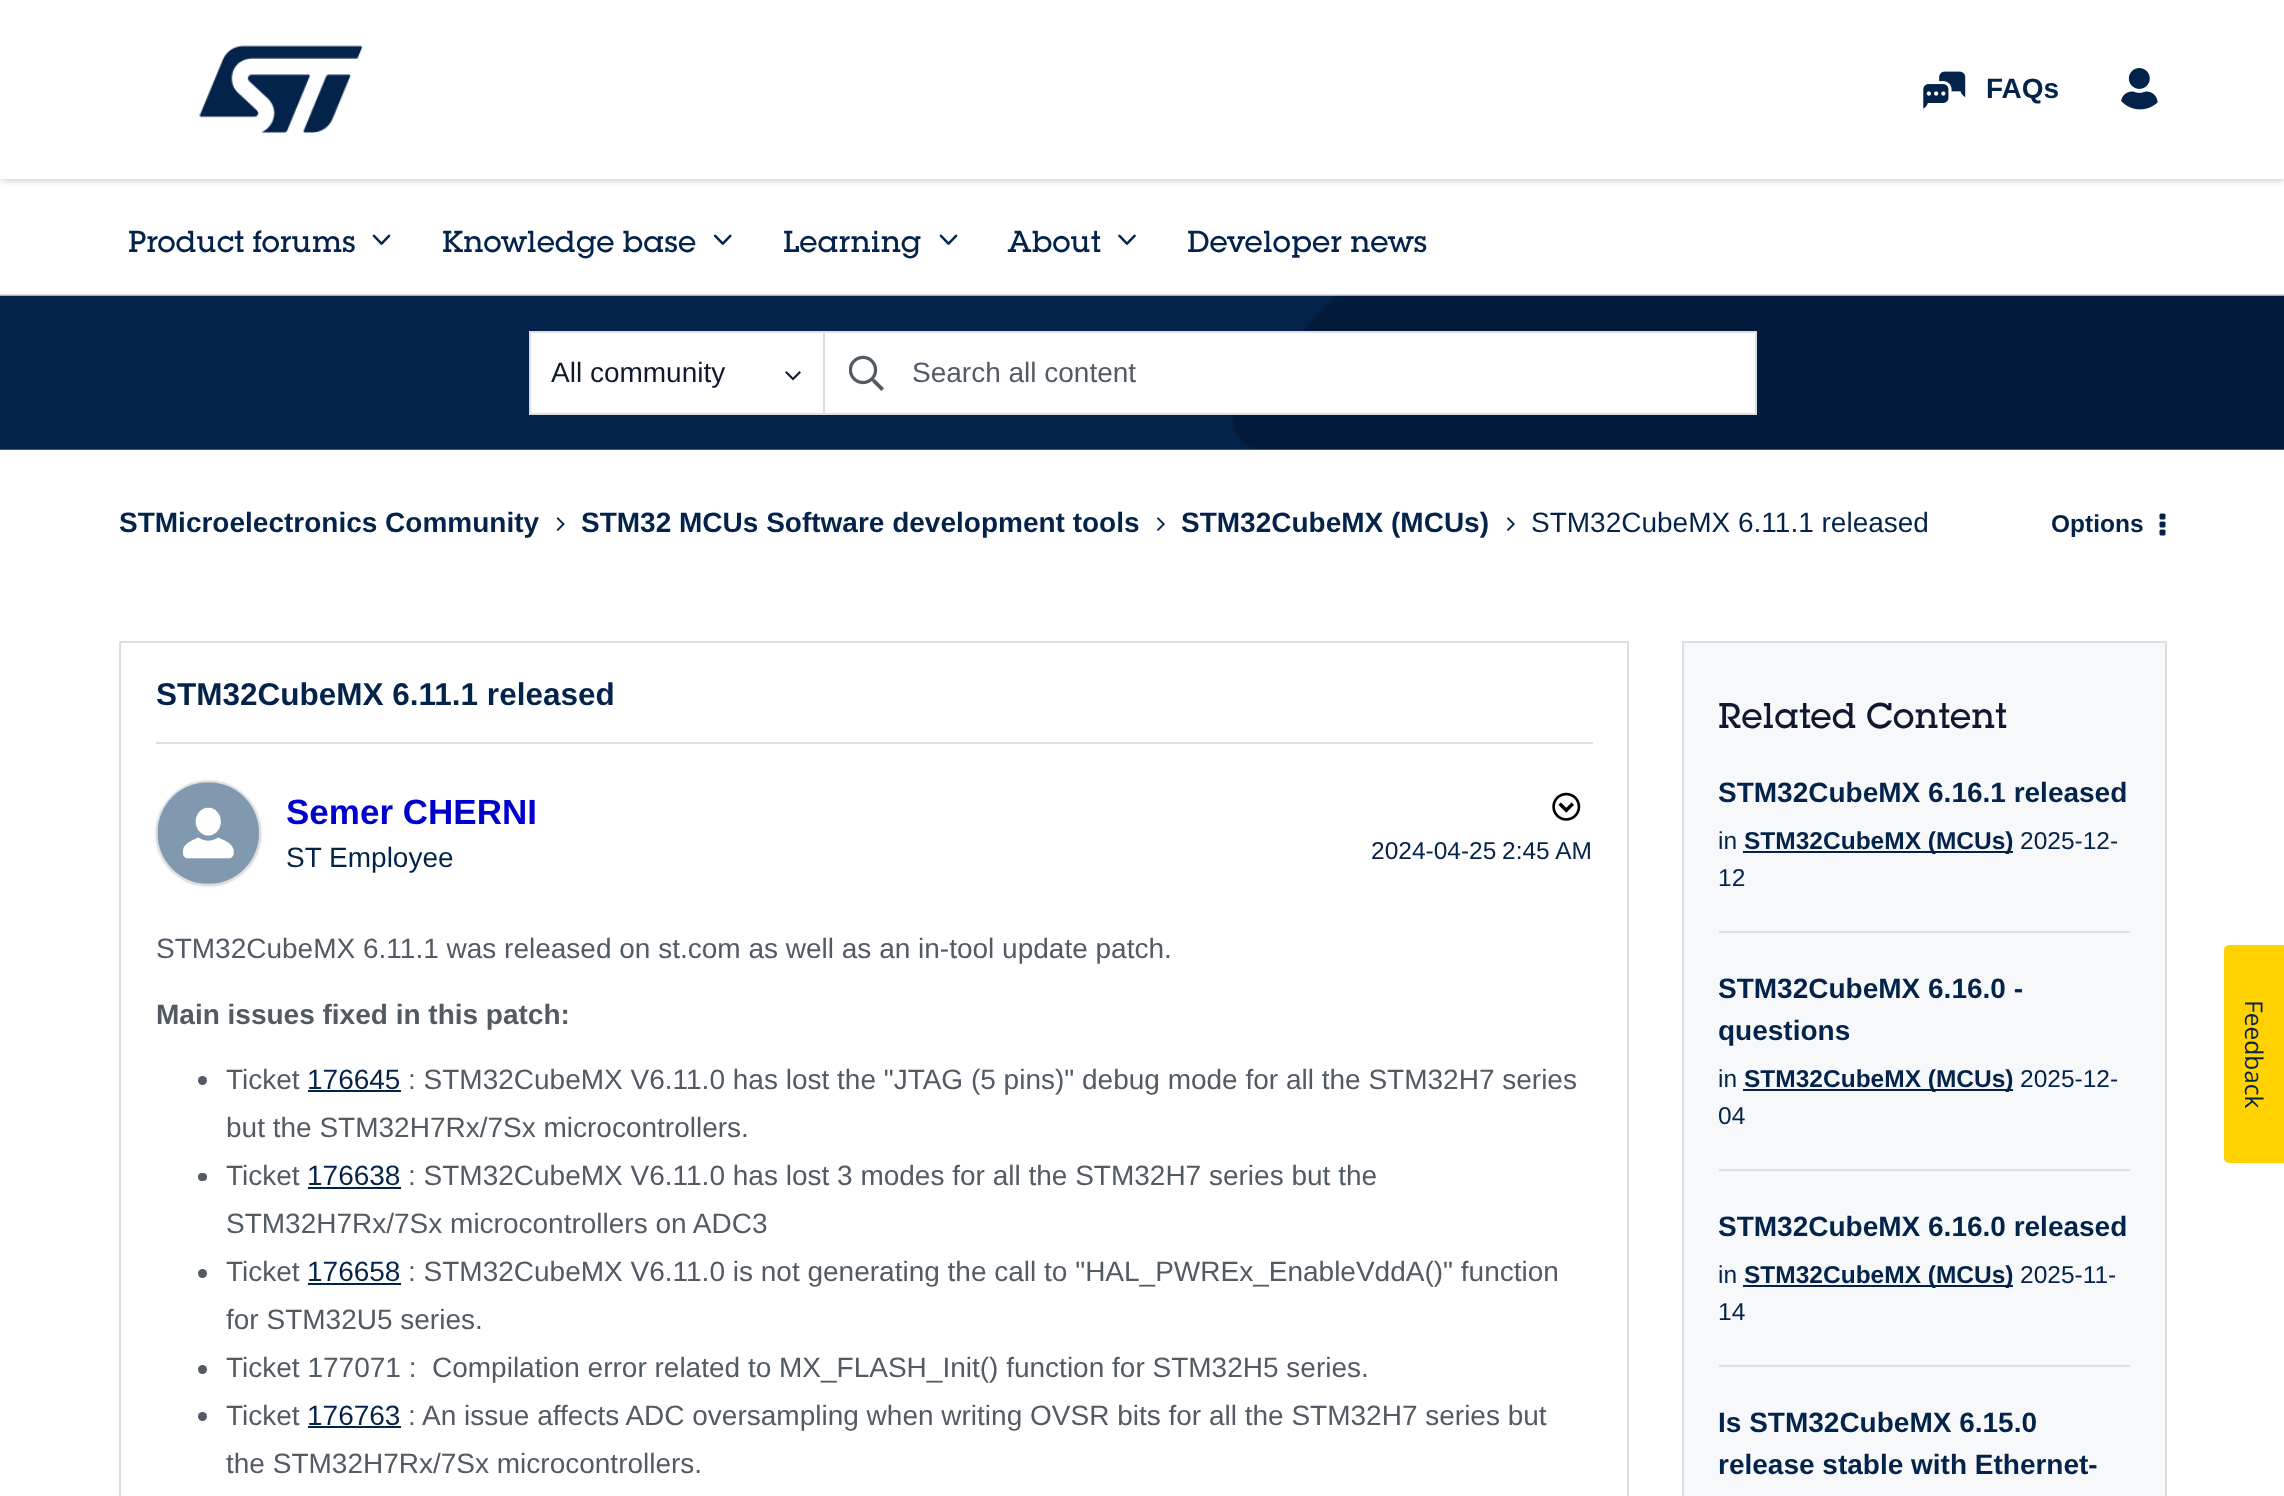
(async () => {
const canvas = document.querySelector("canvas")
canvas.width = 2284
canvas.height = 1496
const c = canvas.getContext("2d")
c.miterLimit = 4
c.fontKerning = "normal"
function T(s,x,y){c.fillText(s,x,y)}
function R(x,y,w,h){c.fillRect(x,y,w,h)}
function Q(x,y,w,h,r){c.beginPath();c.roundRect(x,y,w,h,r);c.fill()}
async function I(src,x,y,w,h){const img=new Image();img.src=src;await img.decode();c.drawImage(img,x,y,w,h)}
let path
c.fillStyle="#fff"
R(0,0,2284,1496)
c.fillStyle="#00000040"
c.filter="blur(3.5px)"
c.beginPath()
c.rect(2,5,2282,175)
c.fill()
c.filter="none"
c.fillStyle="#fff"
R(0,0,2284,179)
await I("1.png",199,45,164,88)
await I("2.png",1923,71,43,38)
c.font="bold 28px Liberation Sans"
c.fillStyle="#03234b"
T("FAQs",1986,98)
await I("3.png",2121,68,37,42)
c.fillStyle="#dbdee2"
R(0,294,2284,2)
c.font="500 29.75px 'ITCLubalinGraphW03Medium'"
c.fillStyle="#03234b"
T("Product forums",128,252)
await I("4.png",372,234,19,11)
T("Knowledge base",442,252)
await I("5.png",713,234,19,11)
T("Learning",783,252)
await I("4.png",939,234,19,11)
T("About",1008,252)
await I("6.png",1118,234,18,11)
T("Developer news",1187,252)
await I("7.png",0,295,2284,155)
c.fillStyle="#fff"
R(531,333,292,80)
c.fillStyle="#dbdee2"
R(529,331,294,2)
R(529,413,294,2)
R(529,331,2,84)
c.font="28px Liberation Sans"
c.fillStyle="#0f182f"
T("All community",551,382)
await I("8.png",785,371,16,10)
c.fillStyle="#fff"
c.beginPath()
c.rect(824,332,932,82)
c.fill()
c.strokeStyle="#dbdee2"
c.lineWidth=2
c.stroke()
await I("9.png",849,355,35,36)
c.fillStyle="#525a63"
T("Search all content",912,382)
c.font="bold 28px Liberation Sans"
c.fillStyle="#03234b"
T("STMicroelectronics Community",119,532)
await I("10.png",556,517,9,14)
T("STM32 MCUs Software development tools",581,532)
await I("11.png",1157,517,8,14)
T("STM32CubeMX (MCUs)",1181,532)
await I("11.png",1507,517,8,14)
c.font="28px Liberation Sans"
T("STM32CubeMX 6.11.1 released",1531,532)
c.font="bold 24.5px Liberation Sans"
T("Options",2051,532)
await I("12.png",2159,513,7,23)
c.strokeRect(120,642,1508,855)
c.fillStyle="#dbdee2"
R(156,742,1437,2)
c.font="bold 31.5px Liberation Sans"
c.fillStyle="#03234b"
T("STM32CubeMX 6.11.1 released",156,705)
c.fillStyle="#c4c4c4"
c.filter="blur(1px)"
c.beginPath()
c.roundRect(156,781,105,105,52.5)
c.fill()
c.filter="none"
c.beginPath()
c.arc(208.5,833.5,51.5,0,7)
c.stroke()
await I("13.png",157,782,102,102)
c.font="bold 35px Liberation Sans"
c.fillStyle="#00c"
T("Semer CHERNI",286,824)
c.font="28px Liberation Sans"
c.fillStyle="#03234b"
T("ST Employee",286,867)
await I("14.png",1552,792,29,29)
c.font="24.5px Liberation Sans"
T("2024-04-25",1371,859)
T("2:45 AM",1502,859)
c.font="28px Liberation Sans"
c.fillStyle="#525a63"
T("STM32CubeMX 6.11.1 was released on st.com as well as an in-tool update patch.",156,958)
c.font="bold 28px Liberation Sans"
T("Main issues fixed in this patch:",156,1024)
c.beginPath()
c.arc(202.5,1080.5,4.5,0,7)
c.fill()
c.font="28px Liberation Sans"
T("Ticket",226,1089)
c.fillStyle="#03234b"
T("176645",307,1089)
R(308,1090,93,2)
c.fillStyle="#525a63"
T(": STM32CubeMX V6.11.0 has lost the \"JTAG (5 pins)\" debug mode for all the STM32H7 series",408,1089)
T("but the STM32H7Rx/7Sx microcontrollers.",226,1137)
Q(198,1173,9,8,4)
T("Ticket",226,1185)
c.fillStyle="#03234b"
T("176638",307,1185)
R(308,1187,93,2)
c.fillStyle="#525a63"
T(": STM32CubeMX V6.11.0 has lost 3 modes for all the STM32H7 series but the",408,1185)
T("STM32H7Rx/7Sx microcontrollers on ADC3",226,1233)
c.beginPath()
c.arc(202.5,1273.5,4.5,0,7)
c.fill()
T("Ticket",226,1281)
c.fillStyle="#03234b"
T("176658",307,1281)
R(308,1283,93,2)
c.fillStyle="#525a63"
T(": STM32CubeMX V6.11.0 is not generating the call to \"HAL_PWREx_EnableVddA()\" function",408,1281)
T("for STM32U5 series.",226,1329)
c.beginPath()
c.arc(202.5,1369.5,4.5,0,7)
c.fill()
T("Ticket 177071 :  Compilation error related to MX_FLASH_Init() function for STM32H5 series.",226,1377)
c.beginPath()
c.arc(202.5,1416.5,4.5,0,7)
c.fill()
T("Ticket",226,1425)
c.fillStyle="#03234b"
T("176763",307,1425)
R(308,1426,93,2)
c.fillStyle="#525a63"
T(": An issue affects ADC oversampling when writing OVSR bits for all the STM32H7 series but",408,1425)
T("the STM32H7Rx/7Sx microcontrollers.",226,1473)
c.fillStyle="#f7f8fa"
c.beginPath()
c.rect(1683,642,483,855)
c.fill()
c.stroke()
c.font="500 35px 'ITCLubalinGraphW03Medium'"
c.fillStyle="#0f182f"
T("Related Content",1718,728)
c.fillStyle="#dbdee2"
R(1719,931,411,2)
c.font="bold 28px Liberation Sans"
c.fillStyle="#03234b"
T("STM32CubeMX 6.16.1 released",1718,802)
c.font="24.5px Liberation Sans"
T("in",1718,849)
R(1743,851,270,2)
c.font="bold 24.5px Liberation Sans"
T("STM32CubeMX (MCUs)",1744,849)
c.font="24.5px Liberation Sans"
T("2025-12-",2020,849)
T("12",1718,886)
c.fillStyle="#dbdee2"
R(1719,1169,411,2)
c.font="bold 28px Liberation Sans"
c.fillStyle="#03234b"
T("STM32CubeMX 6.16.0 -",1718,998)
T("questions",1718,1040)
c.font="24.5px Liberation Sans"
T("in",1718,1087)
R(1743,1089,270,2)
c.font="bold 24.5px Liberation Sans"
T("STM32CubeMX (MCUs)",1744,1087)
c.font="24.5px Liberation Sans"
T("2025-12-",2020,1087)
T("04",1718,1124)
c.fillStyle="#dbdee2"
R(1719,1365,411,2)
c.font="bold 28px Liberation Sans"
c.fillStyle="#03234b"
T("STM32CubeMX 6.16.0 released",1718,1236)
c.font="24.5px Liberation Sans"
T("in",1718,1283)
R(1743,1285,270,2)
c.font="bold 24.5px Liberation Sans"
T("STM32CubeMX (MCUs)",1744,1283)
c.font="24.5px Liberation Sans"
T("2025-11-",2020,1283)
T("14",1718,1320)
c.font="bold 28px Liberation Sans"
T("Is STM32CubeMX 6.15.0",1718,1432)
T("release stable with Ethernet-",1718,1474)
c.fillStyle="#ffd200"
path = new Path2D("M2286 945v218h-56c-3 0-6-2-6-5v-208c0-3 3-5 6-5z")
c.fill(path)
c.font="24.5px Open Sans"
c.fillStyle="#03234b"
c.save()
c.translate(2245,1000)
c.rotate(90 * Math.PI / 180)
c.fillText("Feedback",0,0)
c.restore()
})()
